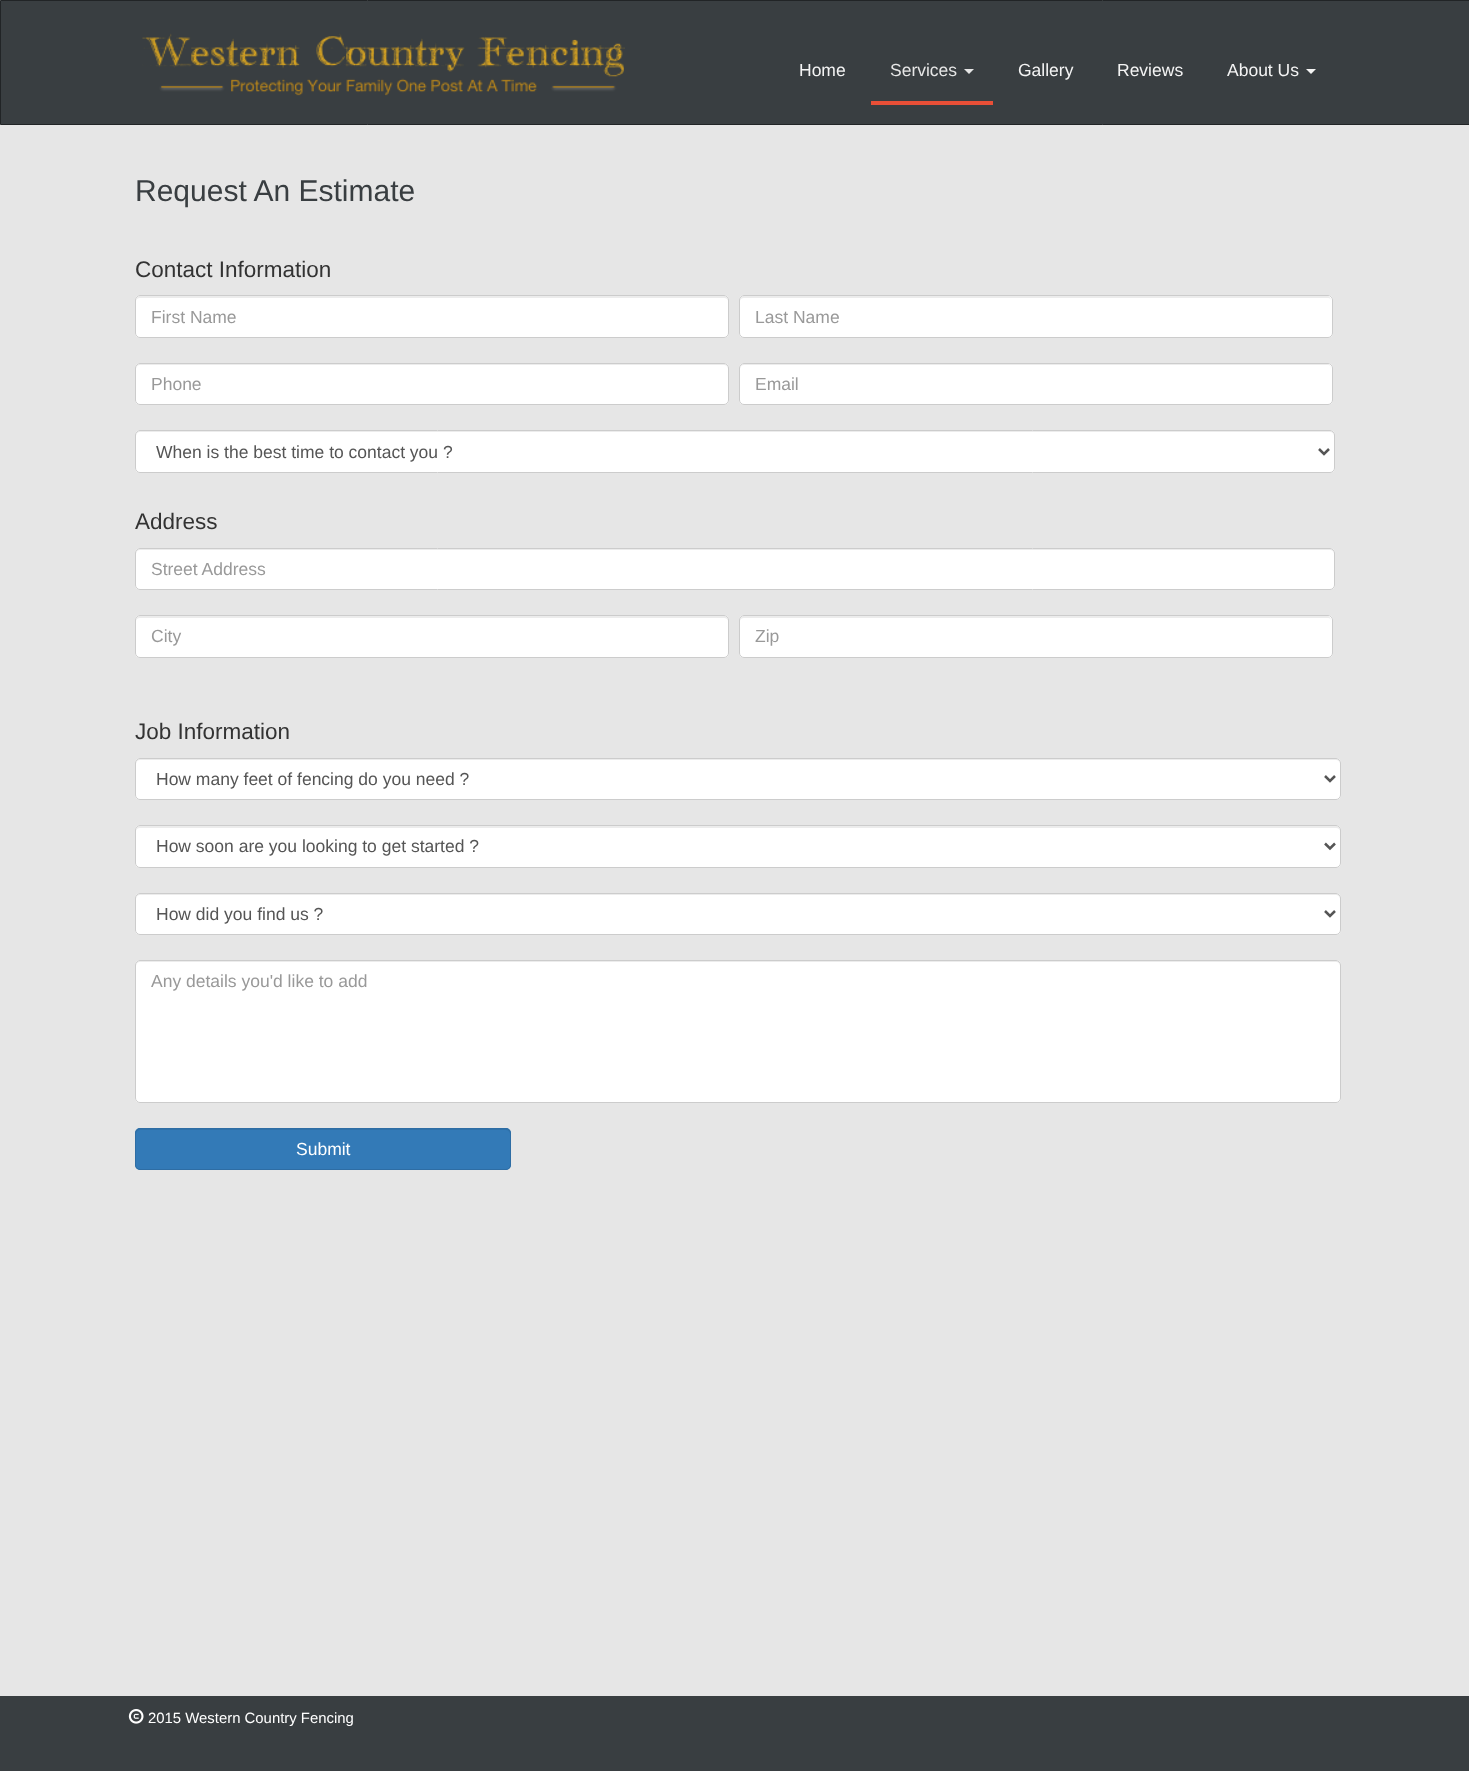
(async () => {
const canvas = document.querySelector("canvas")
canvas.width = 1469
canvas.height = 1771
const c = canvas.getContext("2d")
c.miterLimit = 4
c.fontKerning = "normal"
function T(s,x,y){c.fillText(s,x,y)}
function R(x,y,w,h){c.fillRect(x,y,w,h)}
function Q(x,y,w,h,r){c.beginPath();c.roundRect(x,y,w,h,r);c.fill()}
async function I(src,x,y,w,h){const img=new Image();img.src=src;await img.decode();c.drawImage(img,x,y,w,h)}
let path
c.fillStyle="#e6e6e6"
R(0,0,1469,1771)
c.fillStyle="#393e41"
c.beginPath()
c.rect(.5,.5,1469,124)
c.fill()
c.strokeStyle="#212426"
c.stroke()
await I("1.png",142,33,483,63)
c.font="17.5px Liberation Sans"
c.fillStyle="#f4f4f4"
T("Home",799,76)
c.fillStyle="#e94f37"
R(871,101,122,4)
c.fillStyle="#e6e6e6"
T("Services",890,76)
path = new Path2D("M964 69h10l-5 5z")
c.fill(path)
c.fillStyle="#f4f4f4"
T("Gallery",1018,76)
T("Reviews",1117,76)
T("About Us",1227,76)
path = new Path2D("M1306 69h10l-5 5z")
c.fill(path)
c.font="30px Liberation Sans"
c.fillStyle="#393e41"
T("Request An Estimate",135,201)
c.font="22.5px Liberation Sans"
c.fillStyle="#333"
T("Contact Information",135,277)
c.fillStyle="#fff"
Q(135,295,594,43,5)
c.fillStyle="#ececec"
path = new Path2D("M140 298h584c2 0 4 1 4 3v-1c0-2-2-4-4-4h-584c-2 0-4 2-4 4v1c0-2 2-3 4-3z")
c.fill(path)
c.beginPath()
c.roundRect(135.5,295.5,593,42,4.5)
c.strokeStyle="#ccc"
c.stroke()
c.font="17.5px Liberation Sans"
c.fillStyle="#999"
T("First Name",151,323)
c.fillStyle="#fff"
Q(739,295,594,43,5)
c.fillStyle="#ececec"
path = new Path2D("M744 298h584c2 0 3 1 3 3v-1c0-2-2-4-4-4h-583c-2 0-4 2-4 4v1c0-2 2-3 4-3z")
c.fill(path)
c.beginPath()
c.roundRect(739.5,295.5,593,42,4.5)
c.stroke()
c.fillStyle="#999"
T("Last Name",755,323)
c.fillStyle="#fff"
Q(135,363,594,42,5)
c.fillStyle="#ececec"
path = new Path2D("M140 365h584c2 0 4 2 4 4v-1c0-2-2-4-4-4h-584c-2 0-4 2-4 4v1c0-2 2-4 4-4z")
c.fill(path)
c.beginPath()
c.roundRect(135.5,363.5,593,41,4.5)
c.stroke()
c.fillStyle="#999"
T("Phone",151,390)
c.fillStyle="#fff"
Q(739,363,594,42,5)
c.fillStyle="#ececec"
path = new Path2D("M744 365h584c2 0 3 2 3 4v-1c0-2-2-4-4-4h-583c-2 0-4 2-4 4v1c0-2 2-4 4-4z")
c.fill(path)
c.beginPath()
c.roundRect(739.5,363.5,593,41,4.5)
c.stroke()
c.fillStyle="#999"
T("Email",755,390)
c.fillStyle="#fff"
Q(135,430,1200,43,5)
c.fillStyle="#ececec"
path = new Path2D("M140 432h1190c2 0 4 2 4 4c0-3-1-5-4-5h-1190c-3 0-4 2-4 5c0-2 2-4 4-4z")
c.fill(path)
c.beginPath()
c.roundRect(135.5,430.5,1199,42,4.5)
c.stroke()
path = new Path2D("M1319 449l5 5l5-5")
c.strokeStyle="#555"
c.lineWidth=2.5
c.stroke(path)
c.fillStyle="#555"
T("When is the best time to contact you ?",156,458)
c.font="22.5px Liberation Sans"
c.fillStyle="#333"
T("Address",135,529)
c.fillStyle="#fff"
Q(135,548,1200,42,5)
c.fillStyle="#ececec"
path = new Path2D("M140 550h1190c2 0 4 2 4 4c0-3-1-5-4-5h-1190c-3 0-4 2-4 5c0-2 2-4 4-4z")
c.fill(path)
c.beginPath()
c.roundRect(135.5,548.5,1199,41,4.5)
c.strokeStyle="#ccc"
c.lineWidth=1
c.stroke()
c.font="17.5px Liberation Sans"
c.fillStyle="#999"
T("Street Address",151,575)
c.fillStyle="#fff"
Q(135,615,594,43,5)
c.fillStyle="#ececec"
path = new Path2D("M140 618h584c2 0 4 1 4 3v-1c0-2-2-4-4-4h-584c-2 0-4 2-4 4v1c0-2 2-3 4-3z")
c.fill(path)
c.beginPath()
c.roundRect(135.5,615.5,593,42,4.5)
c.stroke()
c.fillStyle="#999"
T("City",151,642)
c.fillStyle="#fff"
Q(739,615,594,43,5)
c.fillStyle="#ececec"
path = new Path2D("M744 618h584c2 0 3 1 3 3v-1c0-2-2-4-4-4h-583c-2 0-4 2-4 4v1c0-2 2-3 4-3z")
c.fill(path)
c.beginPath()
c.roundRect(739.5,615.5,593,42,4.5)
c.stroke()
c.fillStyle="#999"
T("Zip",755,642)
c.font="22.5px Liberation Sans"
c.fillStyle="#333"
T("Job Information",135,739)
c.fillStyle="#fff"
Q(135,758,1206,42,5)
c.fillStyle="#ececec"
path = new Path2D("M140 760h1196c2 0 4 2 4 4c0-3-1-5-4-5h-1196c-3 0-4 2-4 5c0-2 2-4 4-4z")
c.fill(path)
c.beginPath()
c.roundRect(135.5,758.5,1205,41,4.5)
c.stroke()
path = new Path2D("M1325 776l5 5l5-5")
c.strokeStyle="#555"
c.lineWidth=2.5
c.stroke(path)
c.font="17.5px Liberation Sans"
c.fillStyle="#555"
T("How many feet of fencing do you need ?",156,785)
c.fillStyle="#fff"
Q(135,825,1206,43,5)
c.fillStyle="#ececec"
path = new Path2D("M140 828h1196c2 0 4 1 4 3c0-3-1-5-4-5h-1196c-3 0-4 2-4 5c0-2 2-3 4-3z")
c.fill(path)
c.beginPath()
c.roundRect(135.5,825.5,1205,42,4.5)
c.strokeStyle="#ccc"
c.lineWidth=1
c.stroke()
path = new Path2D("M1325 843.5l5 5l5-5")
c.strokeStyle="#555"
c.lineWidth=2.5
c.stroke(path)
c.fillStyle="#555"
T("How soon are you looking to get started ?",156,852)
c.fillStyle="#fff"
Q(135,893,1206,42,5)
c.fillStyle="#ececec"
path = new Path2D("M140 895h1196c2 0 4 2 4 4c0-3-1-5-4-5h-1196c-3 0-4 2-4 5c0-2 2-4 4-4z")
c.fill(path)
c.beginPath()
c.roundRect(135.5,893.5,1205,41,4.5)
c.strokeStyle="#ccc"
c.lineWidth=1
c.stroke()
path = new Path2D("M1325 911l5 5l5-5")
c.strokeStyle="#555"
c.lineWidth=2.5
c.stroke(path)
c.fillStyle="#555"
T("How did you find us ?",156,920)
c.fillStyle="#fff"
Q(135,960,1206,143,5)
c.fillStyle="#ececec"
path = new Path2D("M140 962h1196c2 0 4 2 4 4c0-3-1-5-4-5h-1196c-3 0-4 2-4 5c0-2 2-4 4-4z")
c.fill(path)
c.beginPath()
c.roundRect(135.5,960.5,1205,142,4.5)
c.strokeStyle="#ccc"
c.lineWidth=1
c.stroke()
c.fillStyle="#999"
T("Any details you'd like to add",151,987)
c.fillStyle="#337ab7"
Q(135,1128,376,42,5)
c.fillStyle="#2f71a9"
path = new Path2D("M140 1130h366c2 0 4 2 4 4c0-3-1-5-4-5h-366c-3 0-4 2-4 5c0-2 2-4 4-4z")
c.fill(path)
c.beginPath()
c.roundRect(135.5,1128.5,375,41,4.5)
c.strokeStyle="#2e6da4"
c.stroke()
c.fillStyle="#fff"
T("Submit",296,1155)
c.fillStyle="#393e41"
R(0,1696,1469,75)
await I("2.png",128,1709,16,15)
c.font="14.9px Liberation Sans"
c.fillStyle="#fff"
T("2015 Western Country Fencing",148,1723)
})()
